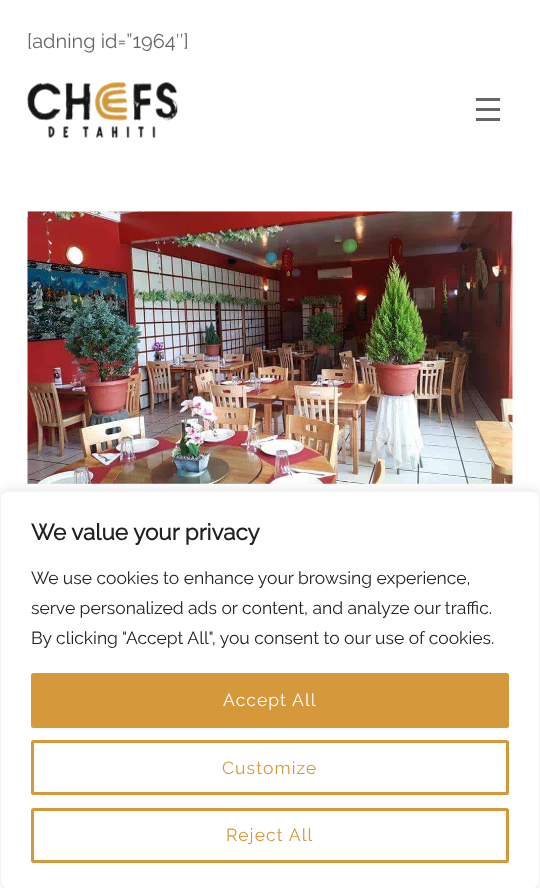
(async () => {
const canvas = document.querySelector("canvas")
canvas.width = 540
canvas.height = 888
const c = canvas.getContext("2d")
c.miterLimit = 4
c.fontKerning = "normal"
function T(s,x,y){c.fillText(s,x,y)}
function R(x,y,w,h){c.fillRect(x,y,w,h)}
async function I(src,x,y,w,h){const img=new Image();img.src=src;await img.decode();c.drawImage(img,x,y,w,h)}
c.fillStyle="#fff"
R(0,0,540,888)
c.font="100 20px Raleway"
c.fillStyle="#666"
T("[adning id=”1964″]",27,48)
await I("1.png",27,82,151,56)
R(476,118,24,3)
R(476,98,24,3)
R(476,108,24,3)
await I("2.png",27,211,486,273)
c.fillStyle="#acabab4d"
c.filter="blur(6px)"
c.beginPath()
c.roundRect(0,490,540,398,8)
c.fill()
c.filter="none"
c.fillStyle="#fff"
c.beginPath()
c.roundRect(.5,491.5,539,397,7.5)
c.fill()
c.strokeStyle="#f4f4f4"
c.stroke()
c.font="bold 22.5px Raleway"
c.fillStyle="#212121"
T("We value your privacy",31,540)
c.font="100 17.5px Raleway"
T("We use cookies to enhance your browsing experience,",31,584)
T("serve personalized ads or content, and analyze our traffic.",31,614)
T("By clicking \"Accept All\", you consent to our use of cookies.",31,644)
c.fillStyle="#d5993c"
c.beginPath()
c.roundRect(32.5,674.5,475,52,1)
c.fill()
c.strokeStyle="#d5993c"
c.lineWidth=3
c.stroke()
c.letterSpacing="1.1px"
c.fillStyle="#fff"
T("Accept All",223,706)
c.beginPath()
c.roundRect(32.5,741.5,475,52,1)
c.stroke()
c.fillStyle="#d5993c"
T("Customize",222,774)
c.beginPath()
c.roundRect(32.5,809.5,475,52,1)
c.stroke()
T("Reject All",226,841)
})()
